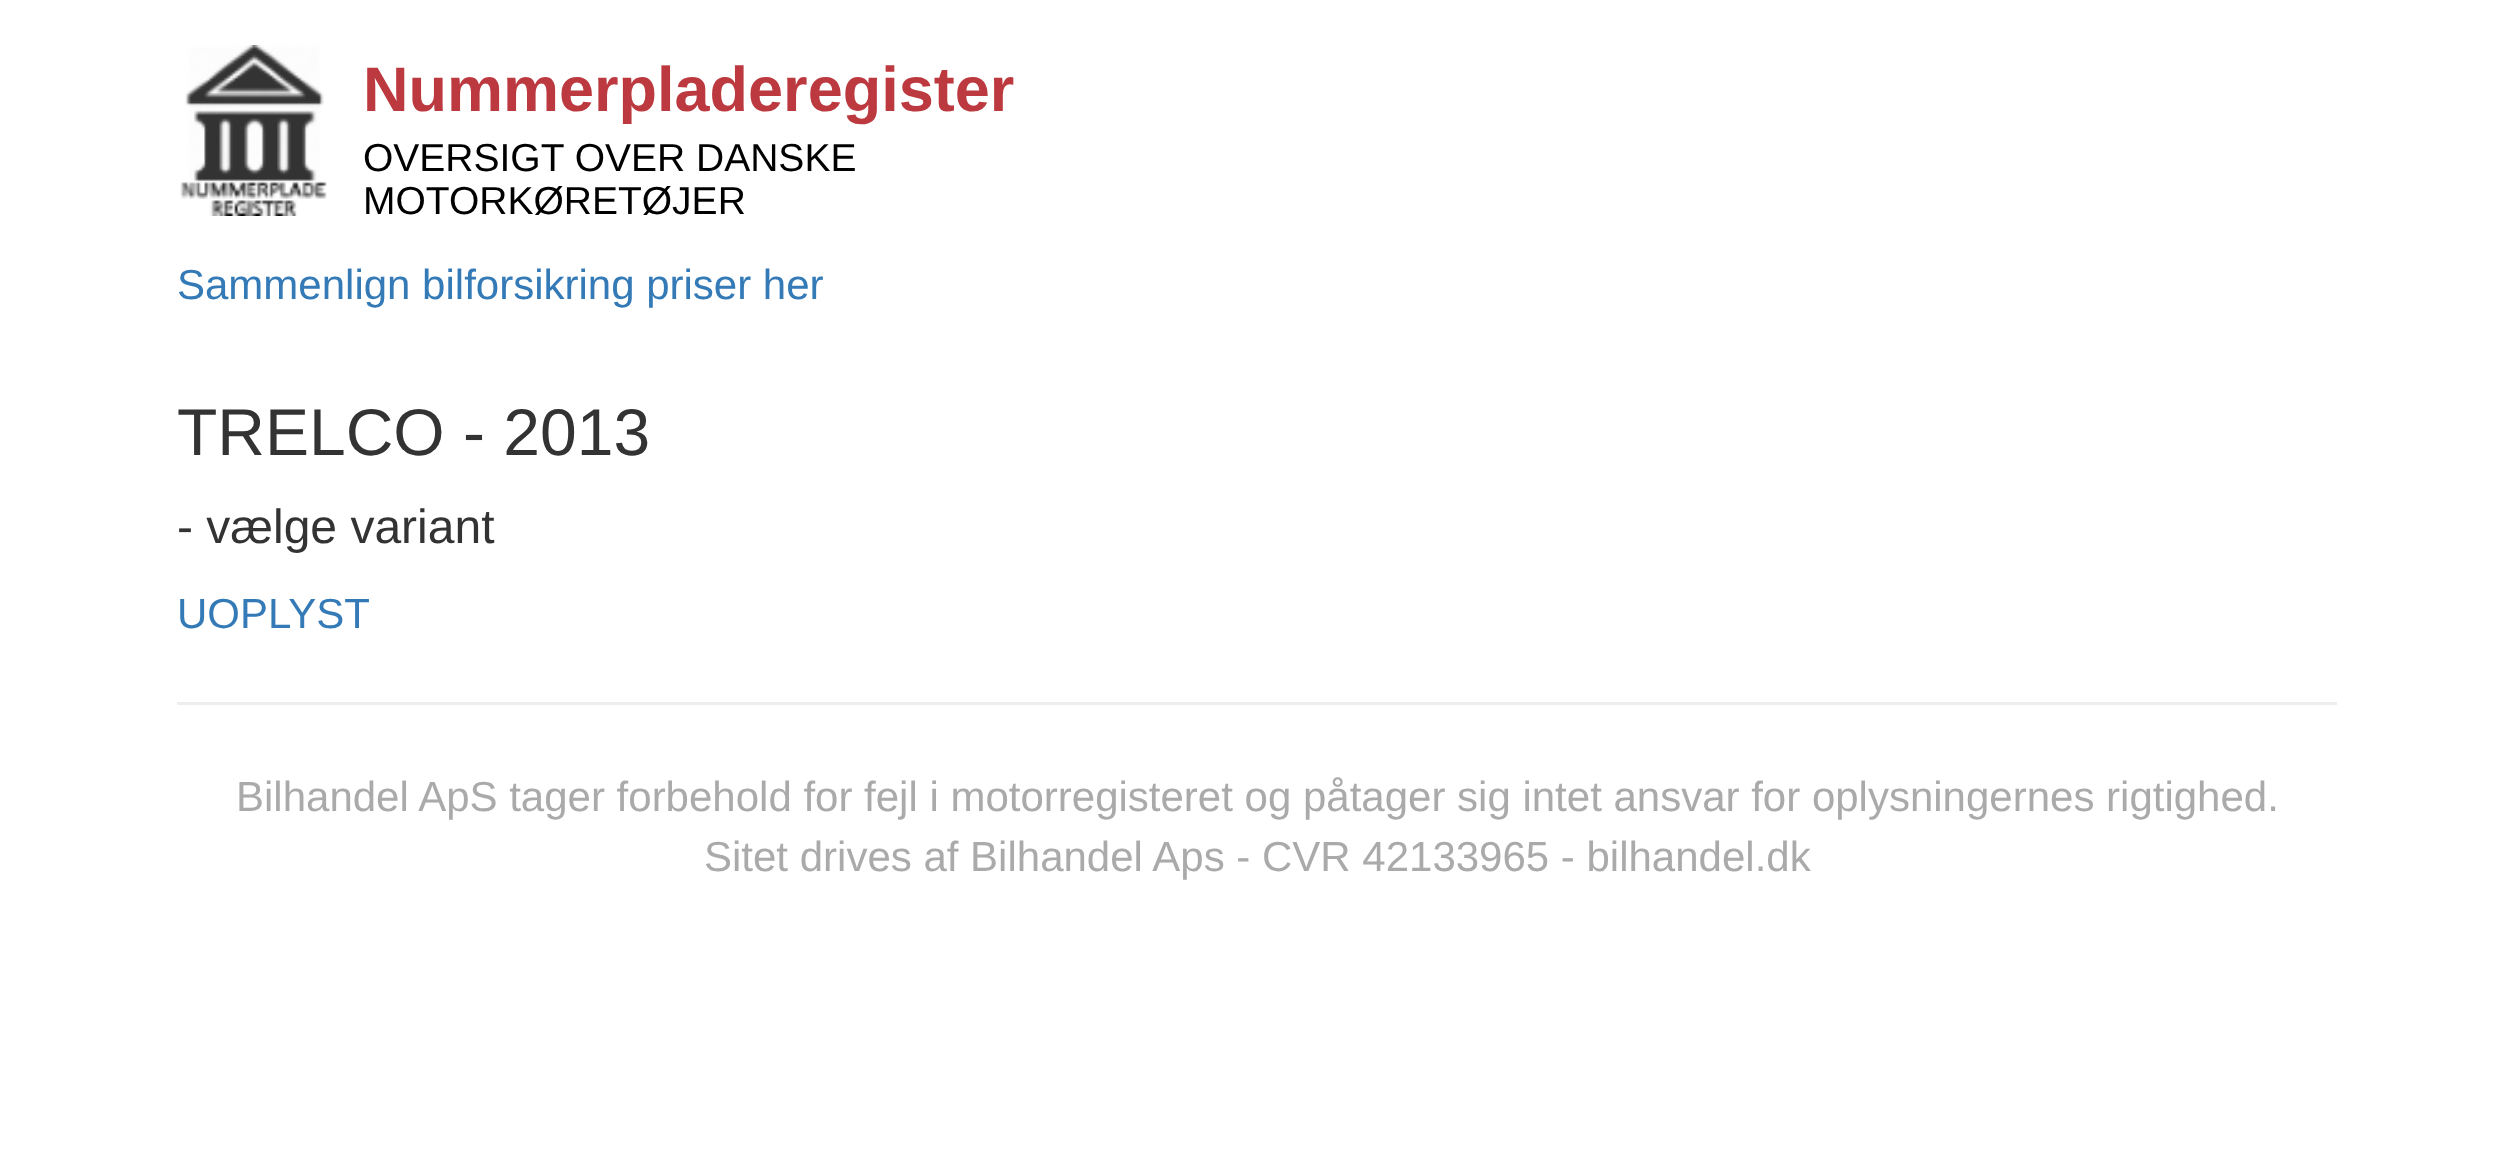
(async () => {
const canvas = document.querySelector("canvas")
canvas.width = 2513
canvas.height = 1173
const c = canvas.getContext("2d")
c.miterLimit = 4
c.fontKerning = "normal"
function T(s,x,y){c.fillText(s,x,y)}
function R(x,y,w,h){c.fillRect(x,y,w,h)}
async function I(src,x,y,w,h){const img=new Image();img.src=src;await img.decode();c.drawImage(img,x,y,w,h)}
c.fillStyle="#fff"
R(0,0,2513,1173)
await I("1.png",180,45,147,171)
c.font="bold 63px Liberation Sans"
c.fillStyle="#bc393f"
T("Nummerpladeregister",363,111)
c.font="39px Liberation Sans"
c.fillStyle="#000"
T("OVERSIGT OVER DANSKE",363,171)
T("MOTORKØRETØJER",363,214)
c.font="42px Liberation Sans"
c.fillStyle="#337ab7"
T("Sammenlign bilforsikring priser her",177,299)
c.font="66px Liberation Sans"
c.fillStyle="#333"
T("TRELCO - 2013",177,455)
c.font="48px Liberation Sans"
T("- vælge variant",177,543)
c.font="42px Liberation Sans"
c.fillStyle="#337ab7"
T("UOPLYST",177,628)
c.fillStyle="#eee"
R(177,702,2160,3)
c.fillStyle="#aaa"
T("Bilhandel ApS tager forbehold for fejl i motorregisteret og påtager sig intet ansvar for oplysningernes rigtighed.",236,811)
T("Sitet drives af Bilhandel Aps - CVR 42133965 - bilhandel.dk",704,871)
})()
